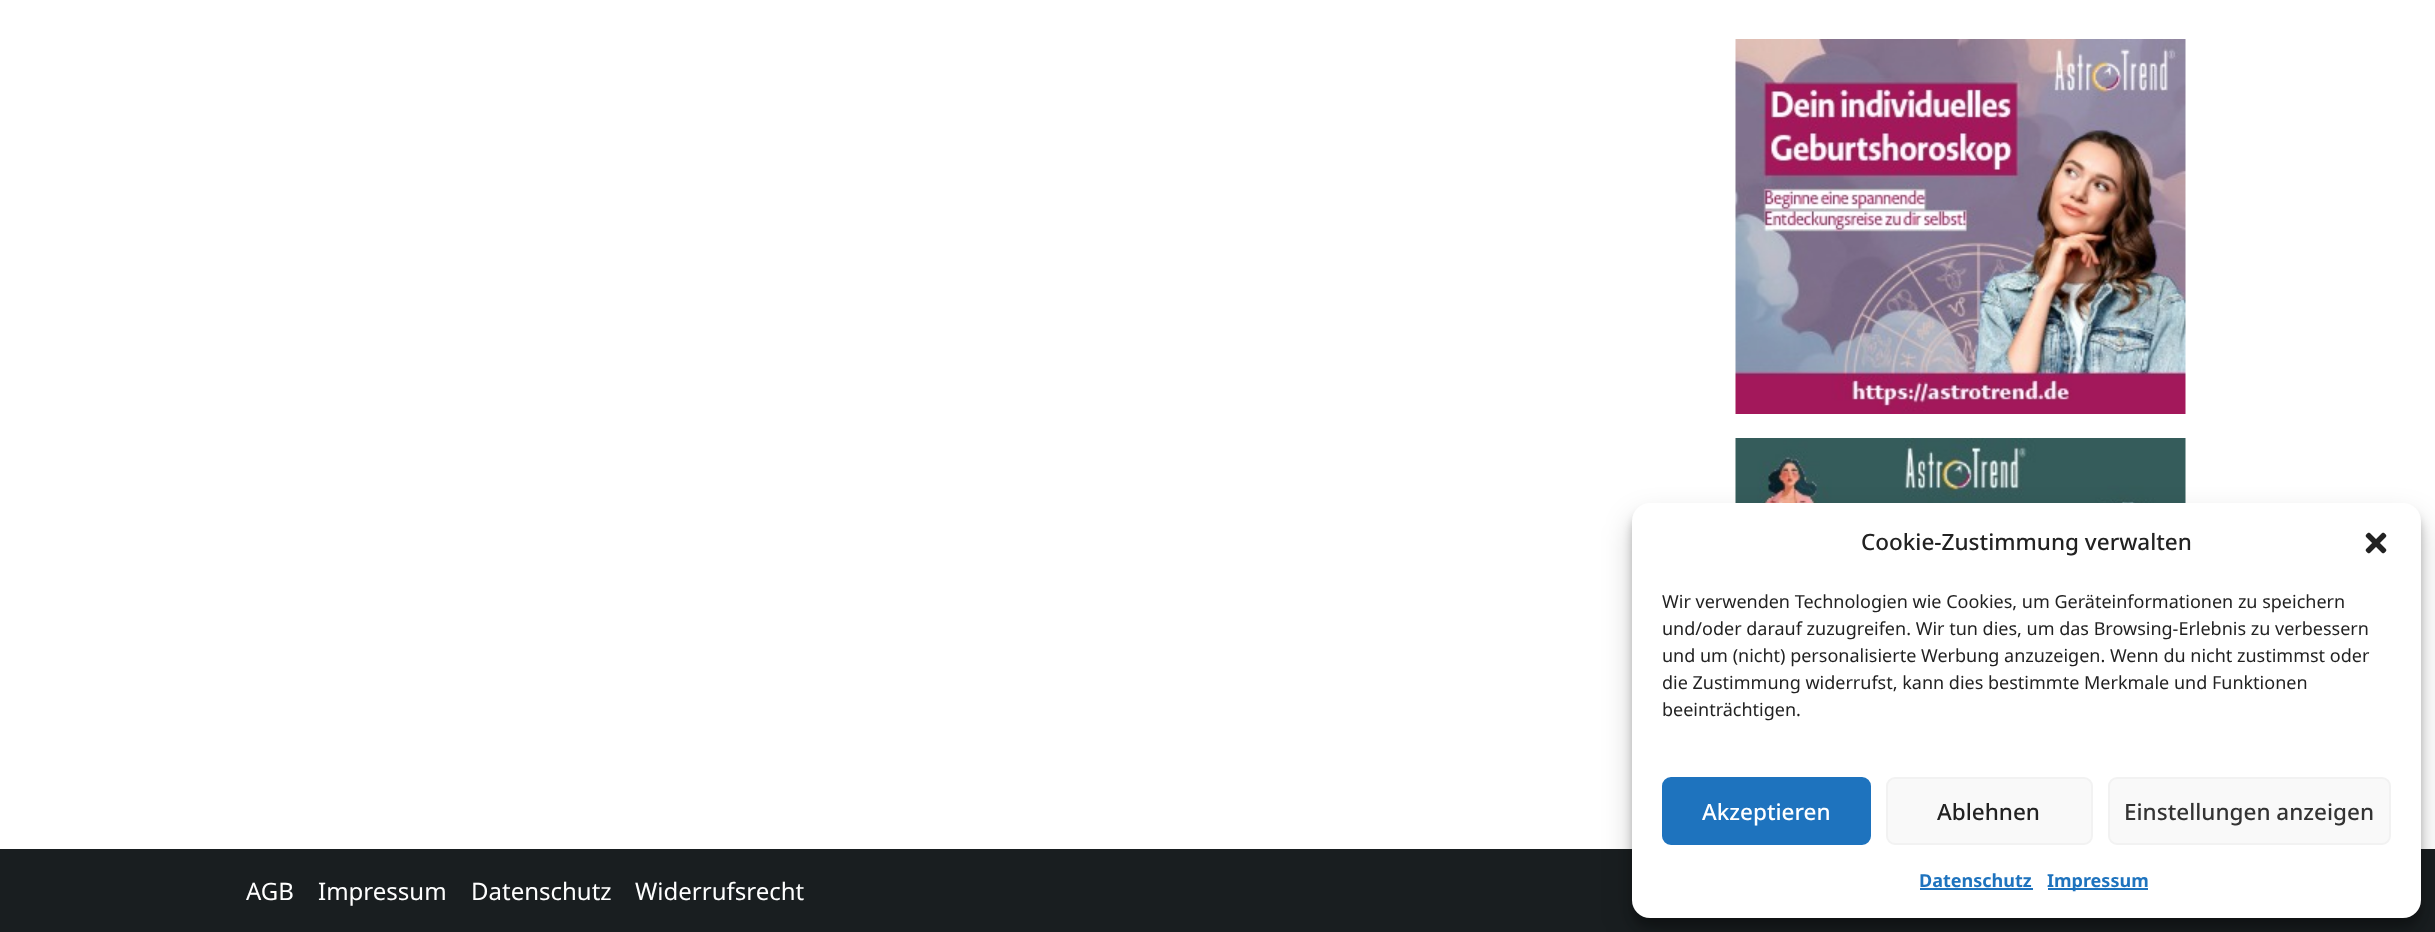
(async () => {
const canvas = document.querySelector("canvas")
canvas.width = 2435
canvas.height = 932
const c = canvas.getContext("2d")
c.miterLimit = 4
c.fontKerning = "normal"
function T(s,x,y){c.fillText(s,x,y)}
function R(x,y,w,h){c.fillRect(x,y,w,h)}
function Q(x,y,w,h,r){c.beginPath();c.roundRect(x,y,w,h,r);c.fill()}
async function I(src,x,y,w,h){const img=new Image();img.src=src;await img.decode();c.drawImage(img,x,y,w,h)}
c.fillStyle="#fff"
R(0,0,2435,932)
await I("1.png",1735,39,451,375)
await I("2.png",1735,438,451,65)
c.fillStyle="#191e20"
R(0,849,2435,83)
c.font="24px Noto Sans"
c.fillStyle="#fff"
T("AGB",246,900)
T("Impressum",318,900)
T("Datenschutz",471,900)
T("Widerrufsrecht",635,900)
c.fillStyle="#0000003b"
c.filter="blur(4.5px)"
c.beginPath()
c.roundRect(1632,512,789,415,18)
c.fill()
c.filter="none"
c.fillStyle="#00000030"
c.filter="blur(15px)"
c.beginPath()
c.roundRect(1632,518,789,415,18)
c.fill()
c.filter="none"
c.fillStyle="#fff"
Q(1632,503,789,415,18)
c.font="500 22.5px Noto Sans"
c.fillStyle="#222"
T("Cookie-Zustimmung verwalten",1861,550)
await I("3.png",2365,532,22,22)
c.font="18px Noto Sans"
T("Wir verwenden Technologien wie Cookies, um Geräteinformationen zu speichern",1662,608)
T("und/oder darauf zuzugreifen. Wir tun dies, um das Browsing-Erlebnis zu verbessern",1662,635)
T("und um (nicht) personalisierte Werbung anzuzeigen. Wenn du nicht zustimmst oder",1662,662)
T("die Zustimmung widerrufst, kann dies bestimmte Merkmale und Funktionen",1662,689)
T("beeinträchtigen.",1662,716)
c.fillStyle="#1e73be"
c.beginPath()
c.roundRect(1663,778,207,66,8)
c.fill()
c.strokeStyle="#1e73be"
c.lineWidth=2
c.stroke()
c.font="500 22.5px Noto Sans"
c.fillStyle="#fff"
T("Akzeptieren",1702,820)
c.fillStyle="#f9f9f9"
c.beginPath()
c.roundRect(1887,778,205,66,8)
c.fill()
c.strokeStyle="#f2f2f2"
c.stroke()
c.fillStyle="#222"
T("Ablehnen",1937,820)
c.fillStyle="#f9f9f9"
c.beginPath()
c.roundRect(2109,778,281,66,8)
c.fill()
c.stroke()
c.fillStyle="#333"
T("Einstellungen anzeigen",2124,820)
c.font="bold 18px Noto Sans"
c.fillStyle="#1e73be"
T("Datenschutz",1919,887)
R(1920,888,113,2)
R(2048,888,100,2)
T("Impressum",2047,887)
})()
